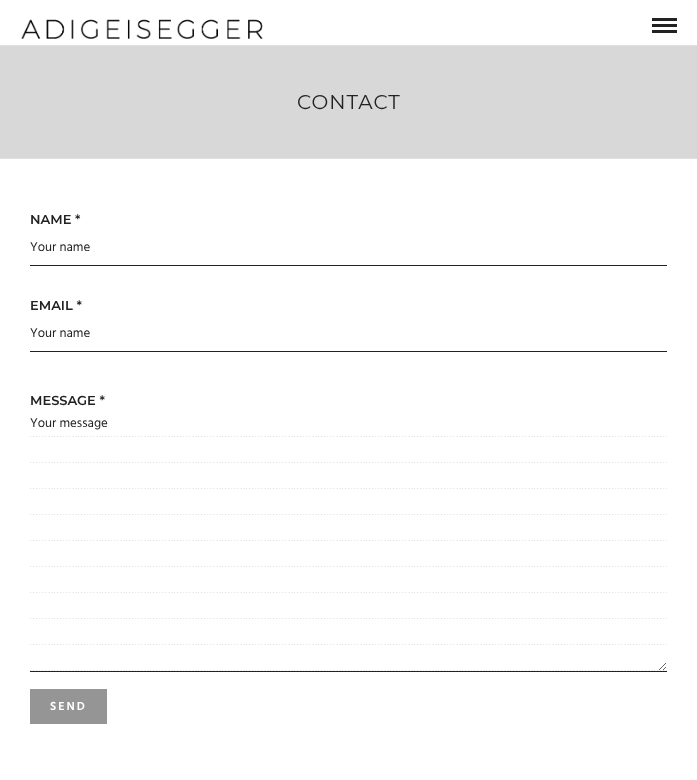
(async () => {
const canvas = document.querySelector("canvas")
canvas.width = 697
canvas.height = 780
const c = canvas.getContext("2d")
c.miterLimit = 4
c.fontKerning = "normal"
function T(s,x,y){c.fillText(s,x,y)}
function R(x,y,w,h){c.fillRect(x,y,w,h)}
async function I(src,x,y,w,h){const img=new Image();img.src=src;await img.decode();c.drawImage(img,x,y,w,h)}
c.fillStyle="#fff"
R(0,0,697,780)
c.fillStyle="#e1e1e1"
R(0,45,697,1)
await I("1.png",21,19,242,20)
c.fillStyle="#222"
R(652,18,25,3)
R(652,24,25,3)
R(652,30,25,3)
c.fillStyle="#d8d8d8"
R(0,46,697,112)
c.fillStyle="#e1e1e1"
R(0,158,697,1)
c.letterSpacing="1px"
c.font="20px Montserrat"
c.fillStyle="#222"
T("CONTACT",297,109)
c.letterSpacing="0px"
c.font="600 13px Montserrat"
T("NAME *",30,224)
R(30,265,637,1)
c.font="13px Hind"
T("Your name",30,251)
c.font="600 13px Montserrat"
T("EMAIL *",30,310)
R(30,351,637,1)
c.font="13px Hind"
T("Your name",30,337)
c.font="600 13px Montserrat"
T("MESSAGE *",30,405)
await I("2.png",30,436,637,235)
R(30,671,637,1)
c.font="13px Hind"
T("Your message",30,427)
c.fillStyle="#959595"
R(30,689,77,35)
c.letterSpacing="2px"
c.font="600 12px Hind"
c.fillStyle="#fff"
T("SEND",50,710)
})()
